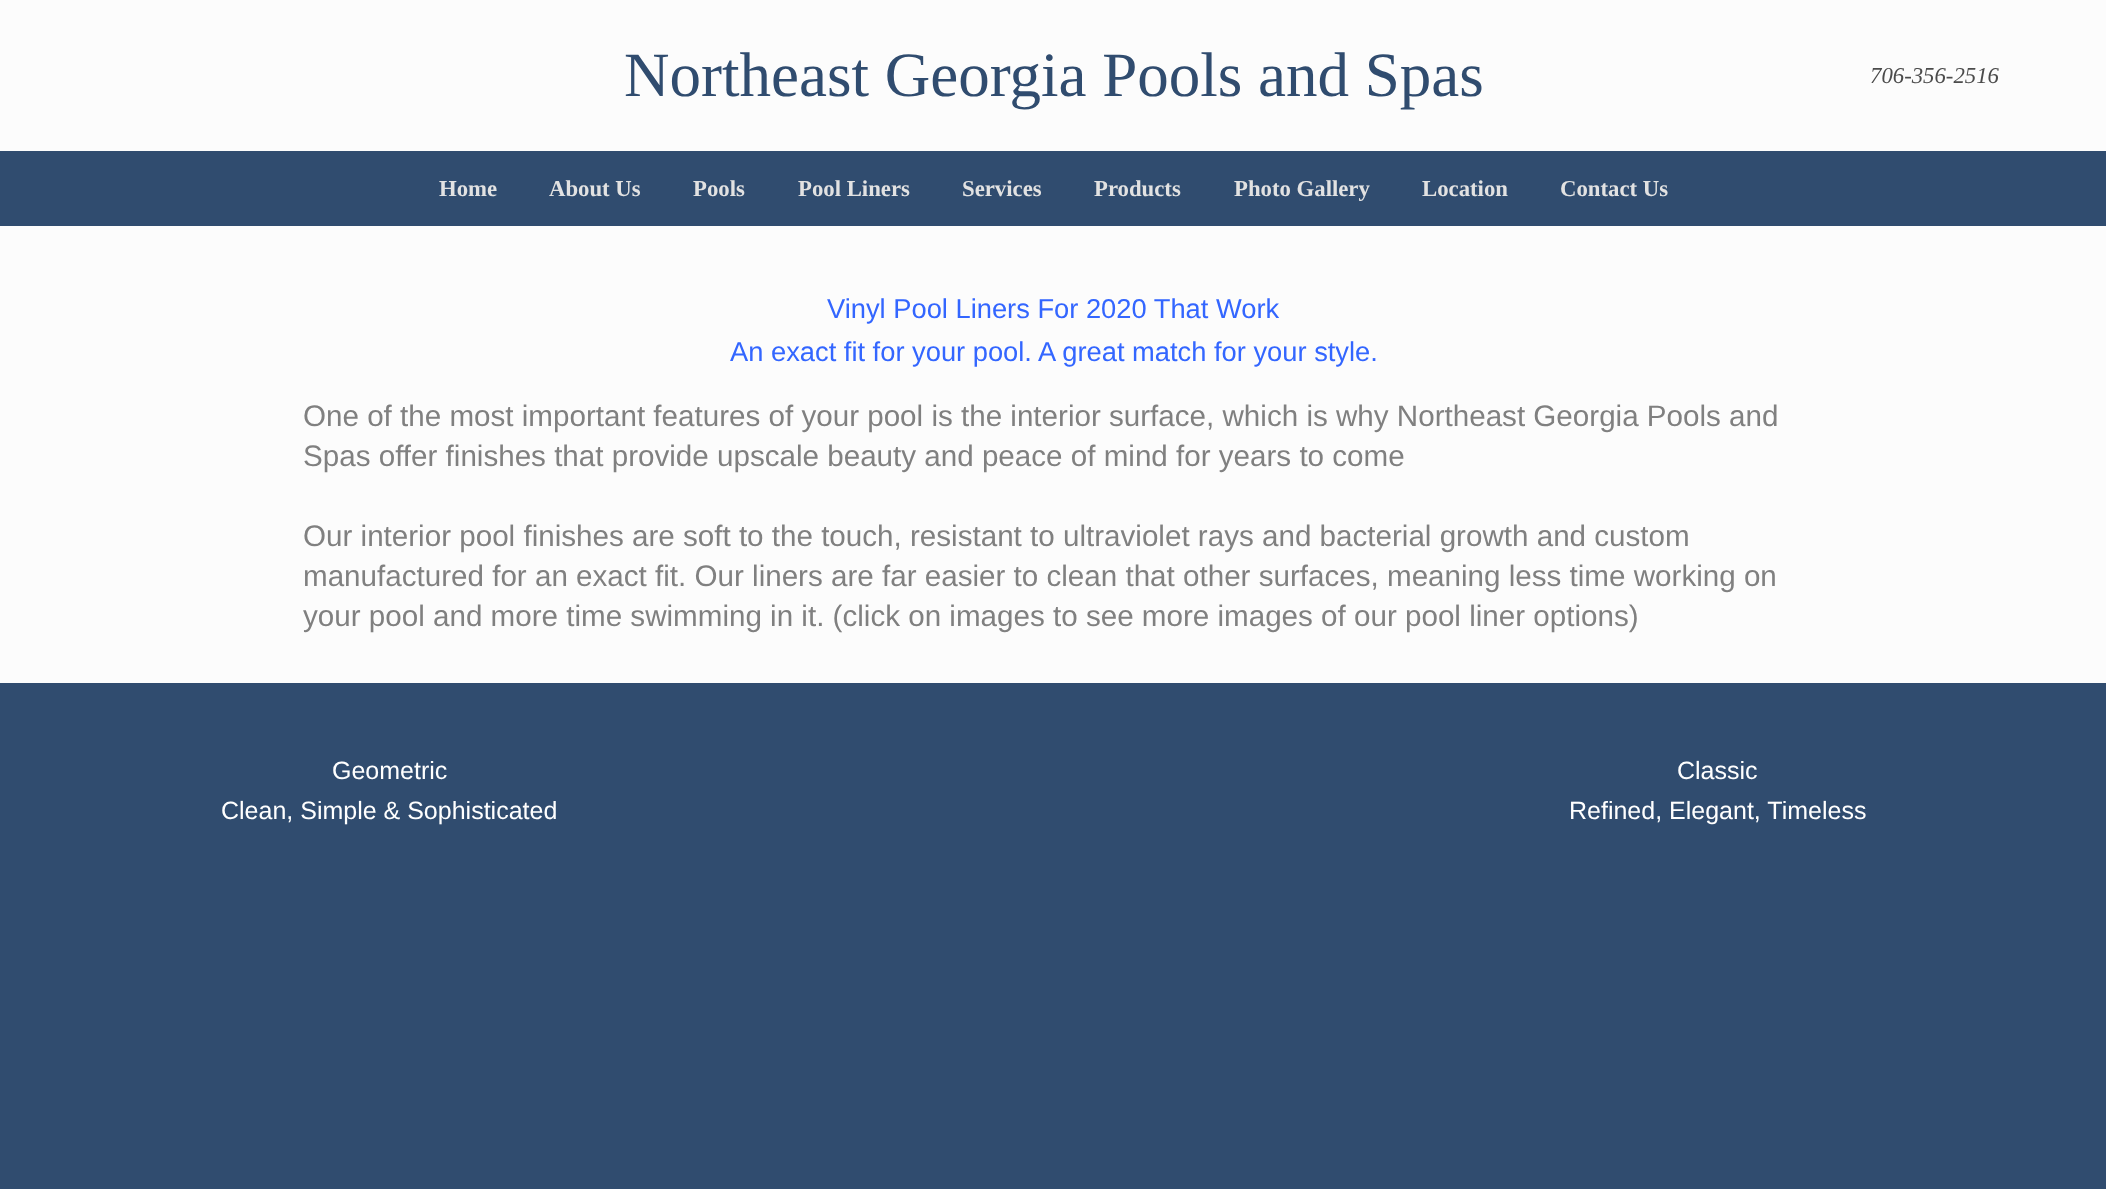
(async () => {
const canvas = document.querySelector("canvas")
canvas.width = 2106
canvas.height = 1189
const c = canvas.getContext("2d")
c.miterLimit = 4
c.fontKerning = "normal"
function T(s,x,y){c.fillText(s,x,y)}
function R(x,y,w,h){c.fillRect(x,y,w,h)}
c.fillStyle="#fcfcfc"
R(0,0,2106,1189)
c.font="63px Liberation Serif"
c.fillStyle="#304c6f"
T("Northeast Georgia Pools and Spas",624,96)
c.font="italic 22.75px Liberation Serif"
c.fillStyle="#4b4b4b"
T("706-356-2516",1870,83)
c.fillStyle="#304c6f"
R(0,151,2106,75)
c.font="bold 22.75px Liberation Serif"
c.fillStyle="#e2e2e2"
T("Home",439,196)
T("About Us",549,196)
T("Pools",693,196)
T("Pool Liners",798,196)
T("Services",962,196)
T("Products",1094,196)
T("Photo Gallery",1234,196)
T("Location",1422,196)
T("Contact Us",1560,196)
c.font="27.3px Liberation Sans"
c.fillStyle="#36f"
T("Vinyl Pool Liners For 2020 That Work",827,318)
T("An exact fit for your pool. A great match for your style.",730,361)
c.font="29.6px Liberation Sans"
c.fillStyle="#808080"
T("One of the most important features of your pool is the interior surface, which is why Northeast Georgia Pools and",303,426)
T("Spas offer finishes that provide upscale beauty and peace of mind for years to come",303,466)
T("Our interior pool finishes are soft to the touch, resistant to ultraviolet rays and bacterial growth and custom",303,546)
T("manufactured for an exact fit. Our liners are far easier to clean that other surfaces, meaning less time working on",303,586)
T("your pool and more time swimming in it. (click on images to see more images of our pool liner options)",303,626)
c.fillStyle="#304c6f"
R(0,683,2106,506)
c.font="25px Liberation Sans"
c.fillStyle="#fff"
T("Geometric",332,779)
T("Clean, Simple & Sophisticated",221,819)
T("Classic",1677,779)
T("Refined, Elegant, Timeless",1569,819)
})()
